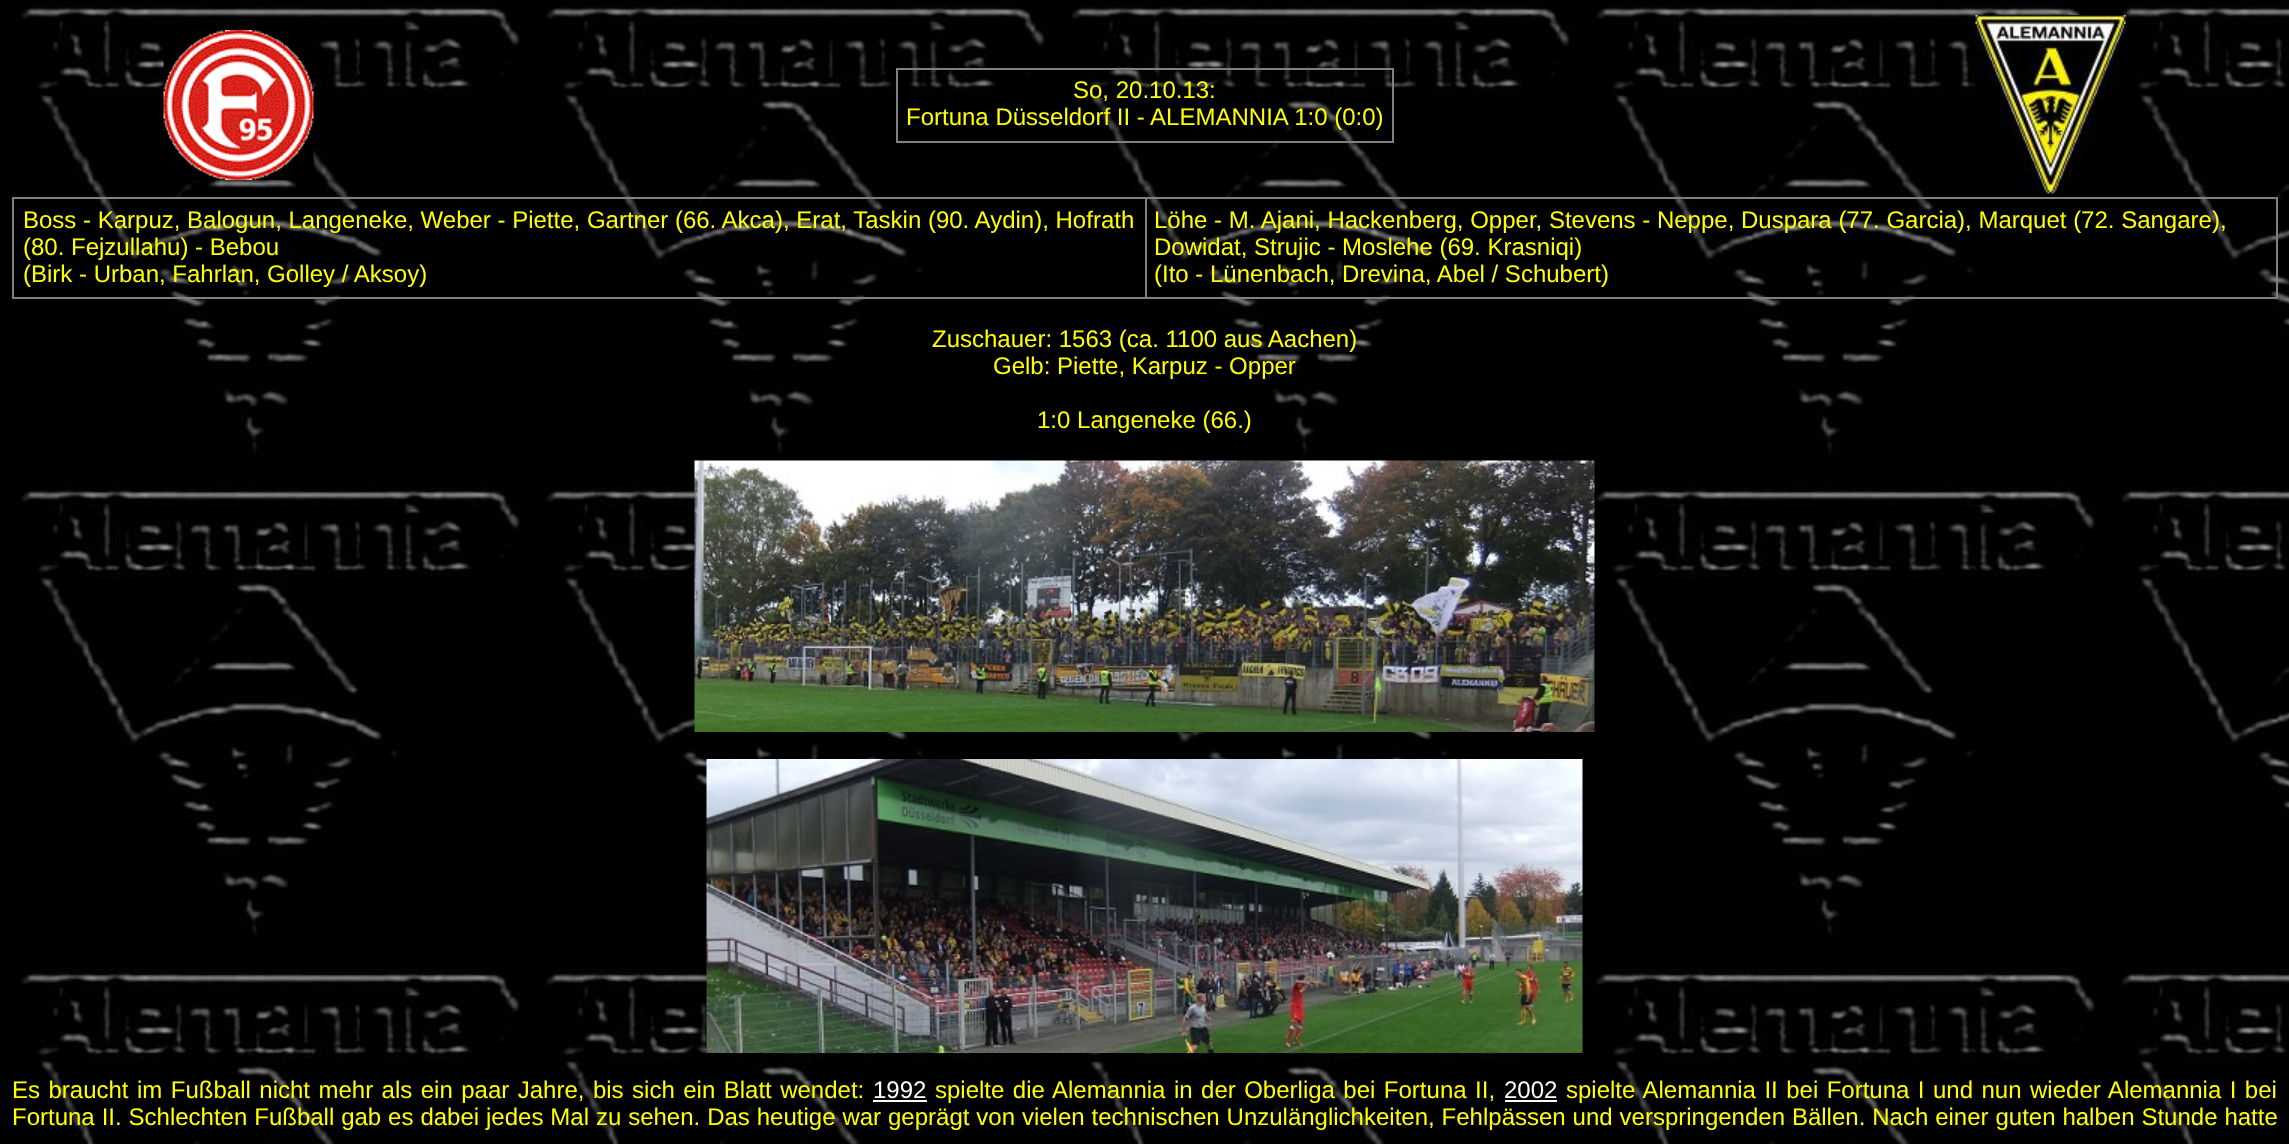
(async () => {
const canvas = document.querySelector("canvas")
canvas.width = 2289
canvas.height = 1144
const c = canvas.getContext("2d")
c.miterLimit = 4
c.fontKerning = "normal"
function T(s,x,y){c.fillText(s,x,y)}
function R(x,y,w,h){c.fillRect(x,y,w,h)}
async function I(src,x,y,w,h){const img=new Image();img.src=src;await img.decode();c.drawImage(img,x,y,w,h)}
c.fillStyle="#000"
R(0,0,2289,1144)
await I("1.png",21,2,2268,1142)
await I("2.png",163,30,151,150)
c.fillStyle="#808080"
R(896,68,498,2)
R(1392,68,2,75)
R(896,141,498,2)
R(896,68,2,75)
c.font="24px Liberation Sans"
c.fillStyle="#ff0"
T("So, 20.10.13:",1073,98)
T("Fortuna Düsseldorf II - ALEMANNIA 1:0 (0:0)",906,125)
await I("3.png",1975,15,151,179)
c.fillStyle="#808080"
R(12,197,2265,2)
R(2276,197,2,102)
R(12,297,2265,2)
R(12,197,2,102)
c.fillStyle="#ff0"
T("Boss - Karpuz, Balogun, Langeneke, Weber - Piette, Gartner (66. Akca), Erat, Taskin (90. Aydin), Hofrath",23,228)
T("(80. Fejzullahu) - Bebou",23,255)
T("(Birk - Urban, Fahrlan, Golley / Aksoy)",23,282)
c.fillStyle="#808080"
R(1145,197,2,102)
c.fillStyle="#ff0"
T("Löhe - M. Ajani, Hackenberg, Opper, Stevens - Neppe, Duspara (77. Garcia), Marquet (72. Sangare),",1154,228)
T("Dowidat, Strujic - Moslehe (69. Krasniqi)",1154,255)
T("(Ito - Lünenbach, Drevina, Abel / Schubert)",1154,282)
T("Zuschauer: 1563 (ca. 1100 aus Aachen)",932,347)
T("Gelb: Piette, Karpuz - Opper",993,374)
T("1:0 Langeneke (66.)",1037,428)
await I("4.png",694,460,901,272)
await I("5.png",706,759,877,294)
c.wordSpacing="1.8px"
T("Es braucht im Fußball nicht mehr als ein paar Jahre, bis sich ein Blatt wendet:",12,1098)
c.wordSpacing="0px"
c.fillStyle="#fff"
T("1992",873,1098)
R(873,1100,54,2)
c.wordSpacing="1.8px"
c.fillStyle="#ff0"
T("spielte die Alemannia in der Oberliga bei Fortuna II,",935,1098)
c.wordSpacing="0px"
c.fillStyle="#fff"
T("2002",1504,1098)
R(1505,1100,52,2)
c.wordSpacing="1.8px"
c.fillStyle="#ff0"
T("spielte Alemannia II bei Fortuna I und nun wieder Alemannia I bei",1566,1098)
c.wordSpacing="0.25px"
T("Fortuna II. Schlechten Fußball gab es dabei jedes Mal zu sehen. Das heutige war geprägt von vielen technischen Unzulänglichkeiten, Fehlpässen und verspringenden Bällen. Nach einer guten halben Stunde hatte",12,1125)
})()
